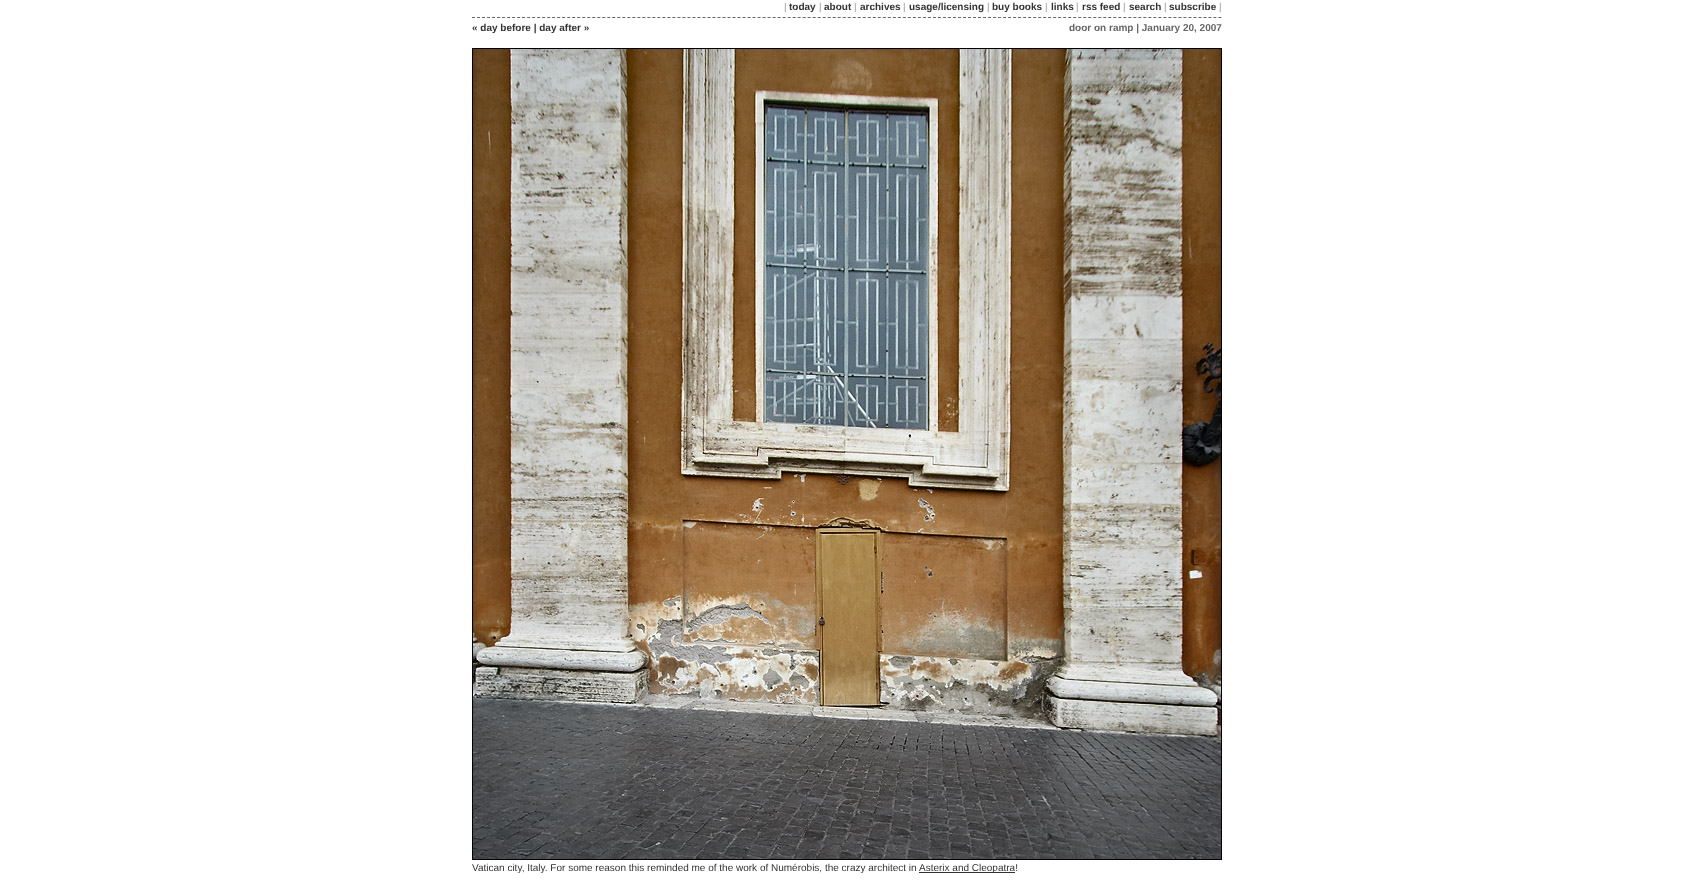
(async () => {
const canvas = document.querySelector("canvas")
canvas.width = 1694
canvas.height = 891
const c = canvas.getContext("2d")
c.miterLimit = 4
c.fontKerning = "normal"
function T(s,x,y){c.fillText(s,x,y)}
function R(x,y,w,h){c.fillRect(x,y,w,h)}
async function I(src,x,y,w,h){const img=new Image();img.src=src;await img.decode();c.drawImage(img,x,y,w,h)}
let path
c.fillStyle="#fff"
R(0,0,1694,891)
path = new Path2D("M472 17.5h750")
c.strokeStyle="#666"
c.setLineDash([3,2.01])
c.stroke(path)
c.font="bold 10px Liberation Sans"
c.fillStyle="#bbb"
T("|",784,10)
c.fillStyle="#333"
T("today",789,10)
c.fillStyle="#bbb"
T("|",819,10)
c.fillStyle="#333"
T("about",824,10)
c.fillStyle="#bbb"
T("|",854,10)
c.fillStyle="#333"
T("archives",860,10)
c.fillStyle="#bbb"
T("|",903,10)
c.fillStyle="#333"
T("usage/licensing",909,10)
c.fillStyle="#bbb"
T("|",987,10)
c.fillStyle="#333"
T("buy books",992,10)
c.fillStyle="#bbb"
T("|",1045,10)
c.fillStyle="#333"
T("links",1051,10)
c.fillStyle="#bbb"
T("|",1076,10)
c.fillStyle="#333"
T("rss feed",1082,10)
c.fillStyle="#bbb"
T("|",1123,10)
c.fillStyle="#333"
T("search",1129,10)
c.fillStyle="#bbb"
T("|",1164,10)
c.fillStyle="#333"
T("subscribe",1169,10)
c.fillStyle="#bbb"
T("|",1219,10)
c.fillStyle="#333"
T("« day before | day after »",472,31)
c.fillStyle="#666"
T("door on ramp | January 20, 2007",1069,31)
await I("1.png",472,48,750,812)
c.font="10px Liberation Sans"
c.fillStyle="#333"
T("Vatican city, Italy. For some reason this reminded me of the work of Numérobis, the crazy architect in",472,871)
R(919,872,96,1)
T("Asterix and Cleopatra!",919,871)
})()
